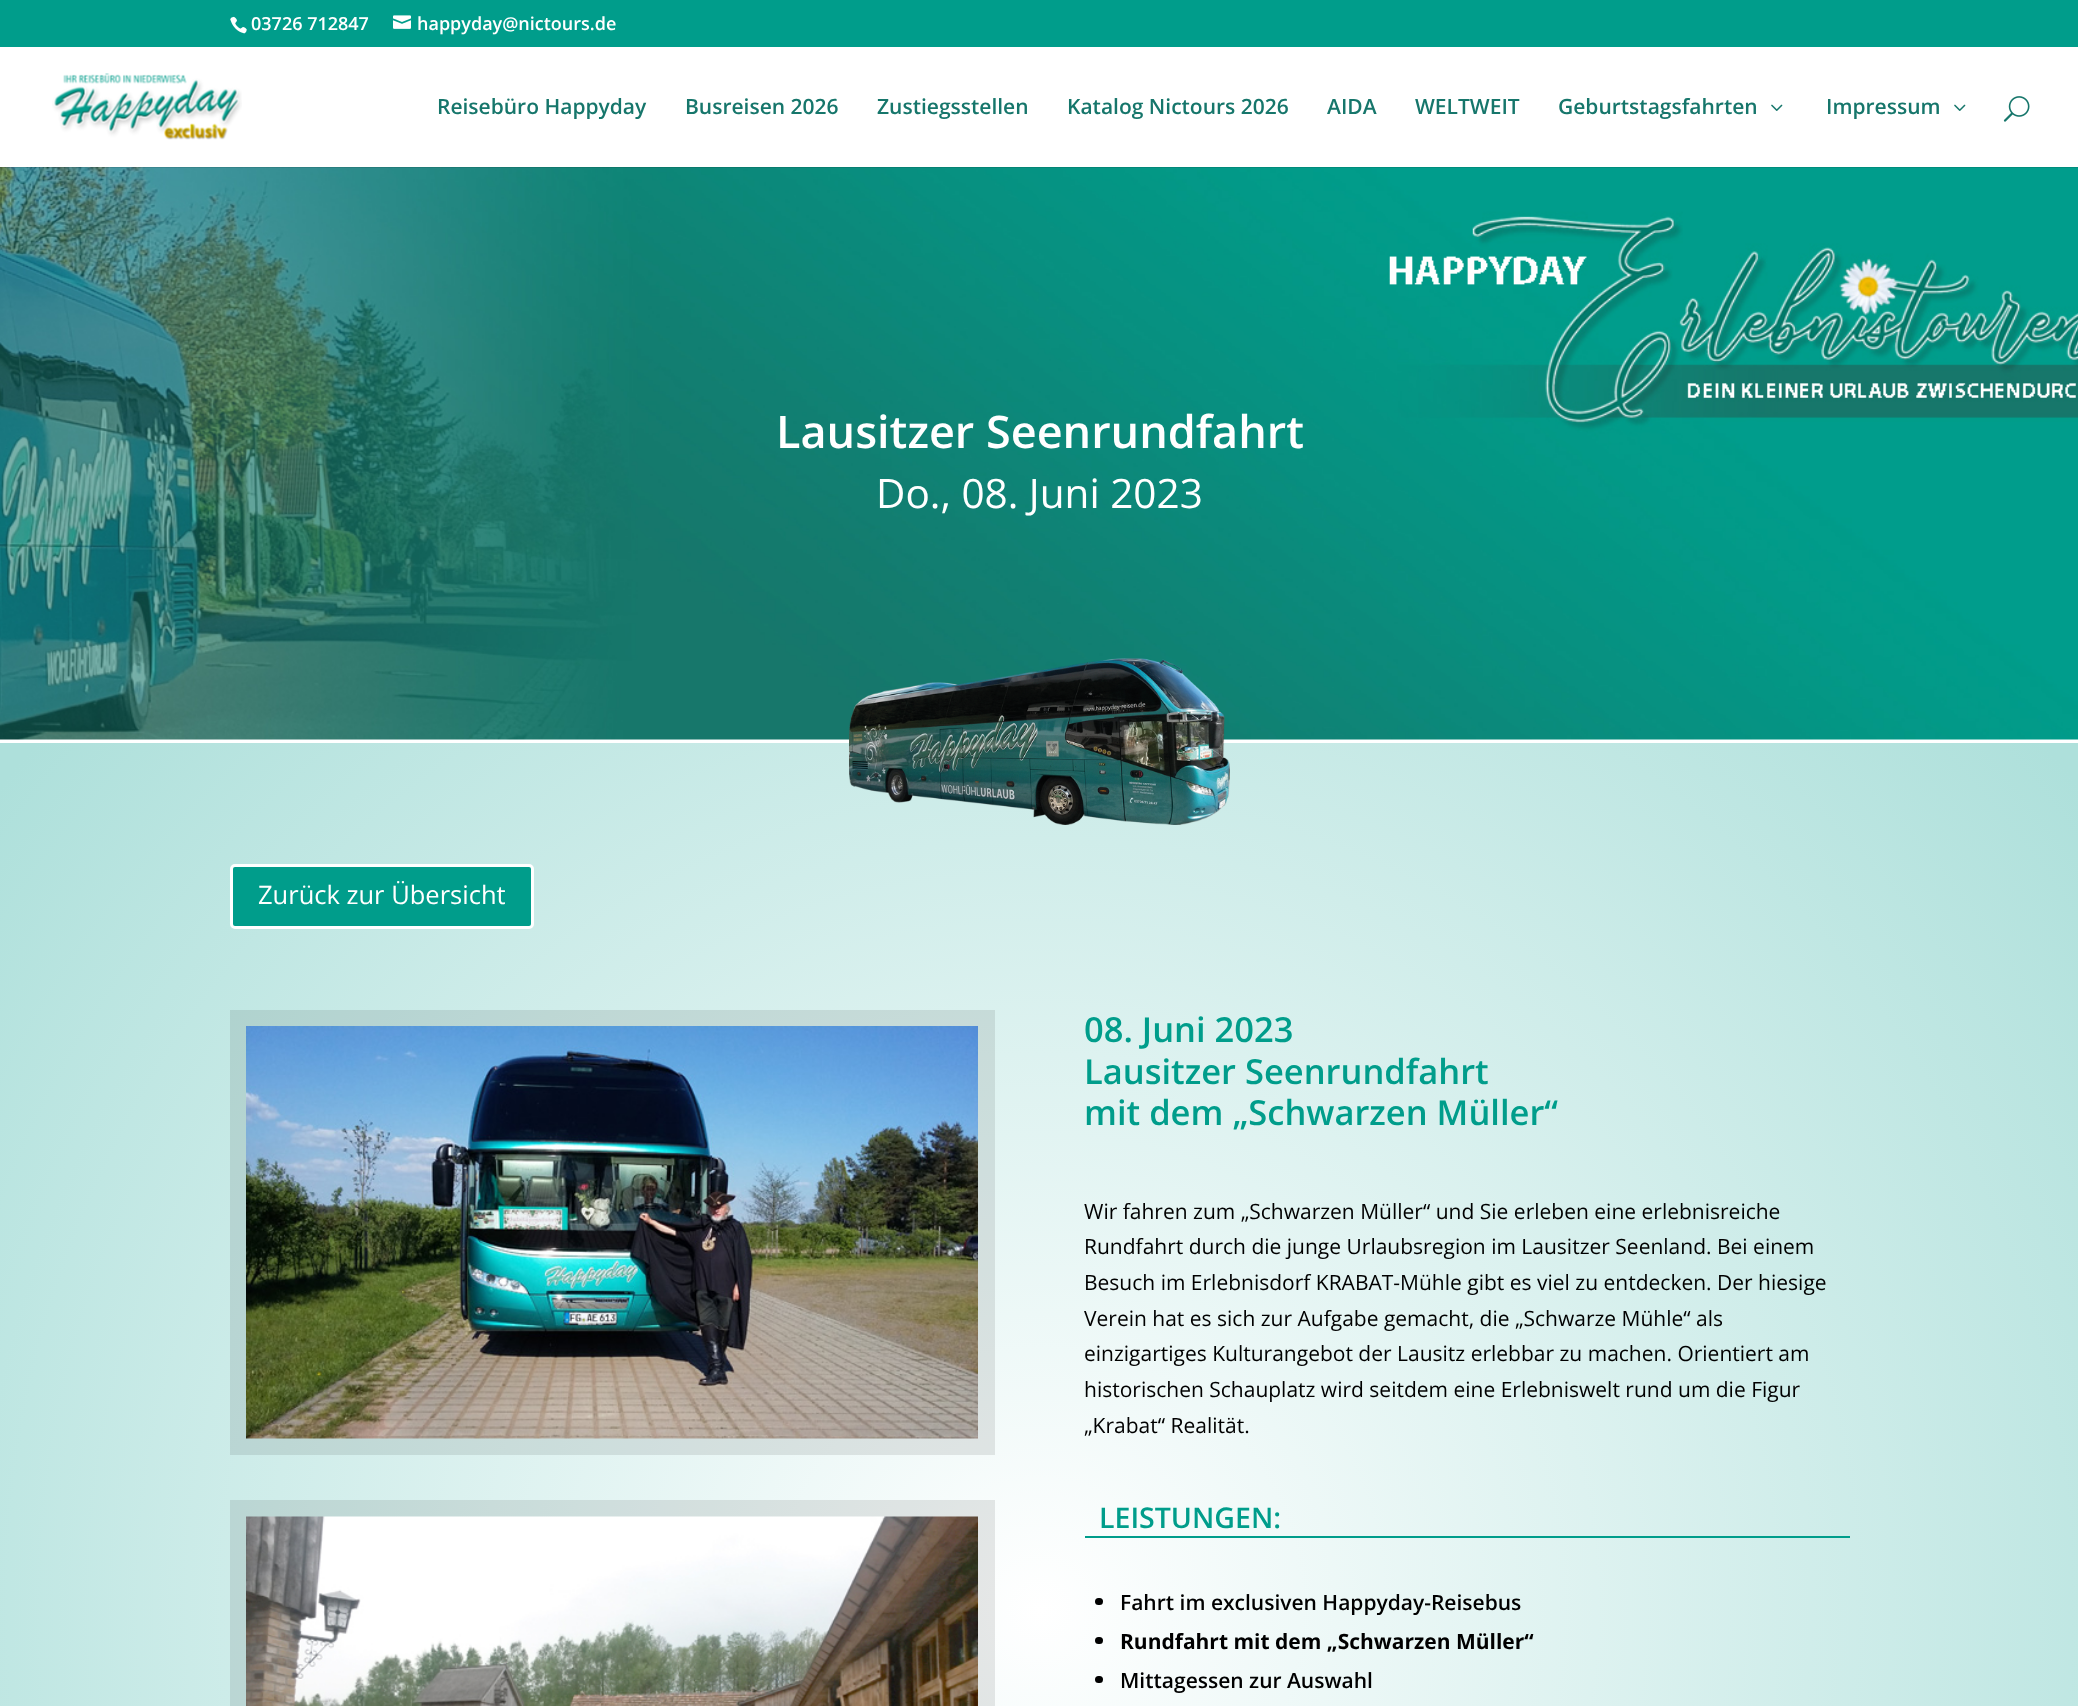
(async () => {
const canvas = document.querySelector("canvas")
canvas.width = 2078
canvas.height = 1706
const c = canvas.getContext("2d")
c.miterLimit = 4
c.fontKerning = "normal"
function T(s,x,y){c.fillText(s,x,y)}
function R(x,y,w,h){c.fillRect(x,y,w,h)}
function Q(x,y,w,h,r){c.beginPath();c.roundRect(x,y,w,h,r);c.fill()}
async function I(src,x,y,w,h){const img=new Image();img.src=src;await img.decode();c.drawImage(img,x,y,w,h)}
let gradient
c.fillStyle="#fff"
R(0,0,2078,1706)
c.fillStyle="#009d8b"
R(0,0,2078,47)
await I("1.png",230,16,17,18)
c.font="600 18px Open Sans"
c.fillStyle="#fff"
T("03726 712847",251,30)
await I("2.png",393,15,18,14)
T("happyday@nictours.de",417,30)
await I("6.png",0,167,2078,573)
c.fillStyle="#0000001a"
R(0,167,2078,1)
await I("3.png",52,73,190,67)
c.font="600 21px Open Sans"
c.fillStyle="#16766b"
T("Reisebüro Happyday",437,114)
T("Busreisen 2026",685,114)
T("Zustiegsstellen",877,114)
T("Katalog Nictours 2026",1067,114)
T("AIDA",1327,114)
T("WELTWEIT",1415,114)
T("Geburtstagsfahrten",1558,114)
await I("4.png",1771,104,12,7)
T("Impressum",1826,114)
await I("4.png",1954,104,12,7)
await I("5.png",2003,96,27,26)
c.font="600 45px Open Sans"
c.fillStyle="#fff"
T("Lausitzer Seenrundfahrt",776,448)
c.font="40.5px Open Sans"
T("Do., 08. Juni 2023",876,508)
gradient = c.createRadialGradient(1040,1610,0,1040,1610,1354)
gradient.addColorStop(0,"#fff")
gradient.addColorStop(.98,"#aee0db")
c.fillStyle = gradient
R(0,743,2078,963)
await I("7.png",849,658,381,167)
c.fillStyle="#009d8b"
c.beginPath()
c.roundRect(231.5,865.5,301,62,3.5)
c.fill()
c.strokeStyle="#fff"
c.lineWidth=3
c.stroke()
c.font="25.5px Open Sans"
c.fillStyle="#fff"
T("Zurück zur Übersicht",258,904)
c.strokeStyle="#00000017"
c.lineWidth=17
c.strokeRect(238.5,1018.5,748,428)
await I("8.png",246,1026,732,413)
c.strokeRect(238.5,1508.5,748,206)
await I("9.png",246,1516,732,190)
c.font="600 34.5px Open Sans"
c.fillStyle="#009d8b"
T("08. Juni 2023",1084,1042)
T("Lausitzer Seenrundfahrt",1084,1084)
T("mit dem „Schwarzen Müller“",1084,1125)
c.font="21px Open Sans"
c.fillStyle="#000"
T("Wir fahren zum „Schwarzen Müller“ und Sie erleben eine erlebnisreiche",1084,1219)
T("Rundfahrt durch die junge Urlaubsregion im Lausitzer Seenland. Bei einem",1084,1254)
T("Besuch im Erlebnisdorf KRABAT-Mühle gibt es viel zu entdecken. Der hiesige",1084,1290)
T("Verein hat es sich zur Aufgabe gemacht, die „Schwarze Mühle“ als",1084,1326)
T("einzigartiges Kulturangebot der Lausitz erlebbar zu machen. Orientiert am",1084,1361)
T("historischen Schauplatz wird seitdem eine Erlebniswelt rund um die Figur",1084,1397)
T("„Krabat“ Realität.",1084,1433)
c.fillStyle="#009d8b"
R(1085,1536,765,2)
c.font="600 28.5px Open Sans"
T("LEISTUNGEN:",1099,1528)
c.fillStyle="#000"
Q(1095,1598,8,7,3.5)
c.font="600 21px Open Sans"
T("Fahrt im exclusiven Happyday-Reisebus",1120,1610)
Q(1095,1637,8,7,3.5)
c.font="bold 21px Open Sans"
T("Rundfahrt mit dem „Schwarzen Müller“",1120,1649)
Q(1095,1676,8,7,3.5)
c.font="600 21px Open Sans"
T("Mittagessen zur Auswahl",1120,1688)
})()
